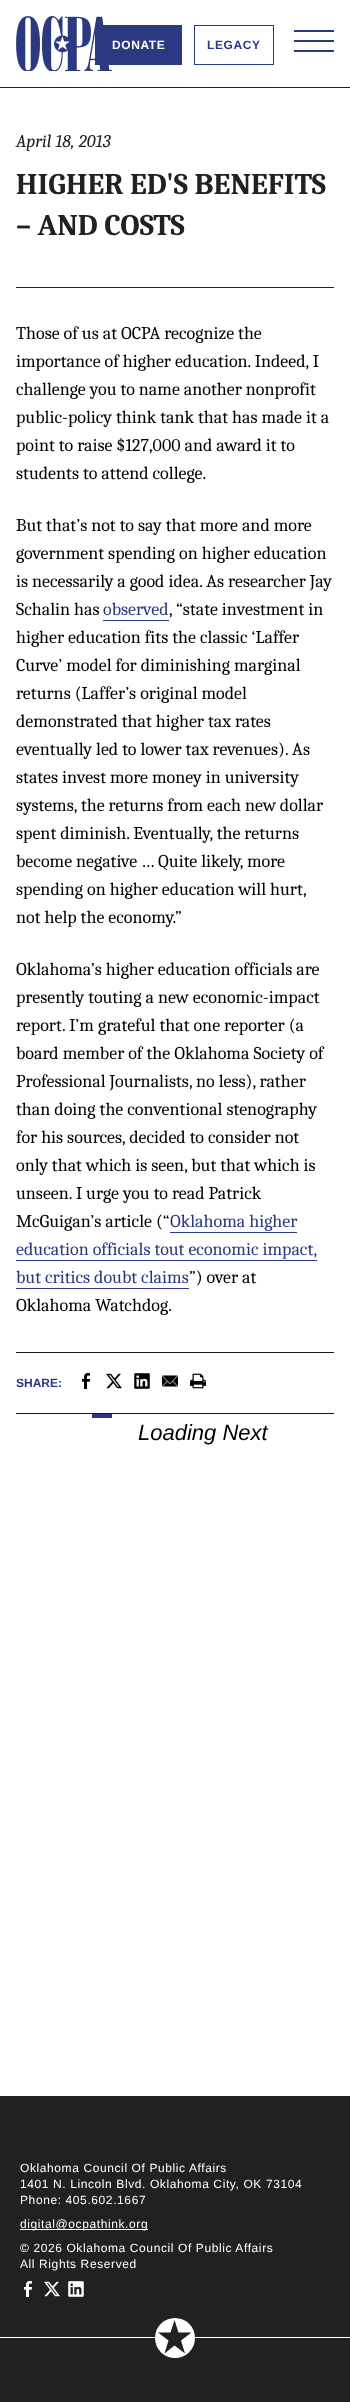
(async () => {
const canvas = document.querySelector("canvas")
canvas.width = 350
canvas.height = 2402
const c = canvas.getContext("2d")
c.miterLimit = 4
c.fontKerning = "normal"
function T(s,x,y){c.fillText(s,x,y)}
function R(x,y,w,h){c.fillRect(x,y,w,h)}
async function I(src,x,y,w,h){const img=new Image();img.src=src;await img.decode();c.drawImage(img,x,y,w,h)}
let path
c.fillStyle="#fff"
R(0,0,350,2402)
c.fillStyle="#212121"
R(0,87,350,1)
c.fillStyle="#2a3980"
R(95,25,87,40)
await I("1.png",16,16,96,55)
c.letterSpacing="0.6px"
c.font="bold 12px Liberation Sans"
c.fillStyle="#fff"
T("DONATE",112,49)
c.strokeStyle="#2a3980"
c.strokeRect(194.5,25.5,79,39)
c.fillStyle="#2a3980"
T("LEGACY",207,49)
R(294,30,40,2)
R(294,40,40,2)
R(294,50,40,2)
c.fillStyle="#212121"
R(16,287,318,1)
c.letterSpacing="0px"
c.font="italic 18px Caladea"
T("April 18, 2013",16,147)
c.font="bold 30px Caladea"
T("HIGHER ED'S BENEFITS",16,194)
T("– AND COSTS",16,235)
c.font="18px Caladea"
c.fillStyle="#000"
T("Those of us at OCPA recognize the",16,339)
T("importance of higher education. Indeed, I",16,367)
T("challenge you to name another nonprofit",16,395)
T("public-policy think tank that has made it a",16,423)
T("point to raise $127,000 and award it to",16,451)
T("students to attend college.",16,479)
T("But that’s not to say that more and more",16,531)
T("government spending on higher education",16,559)
T("is necessarily a good idea. As researcher Jay",16,587)
T("Schalin has",16,615)
c.fillStyle="#2a3980"
T("observed",103,615)
R(103,620,66,1)
c.fillStyle="#000"
T(", “state investment in",169,615)
T("higher education fits the classic ‘Laffer",16,643)
T("Curve’ model for diminishing marginal",16,671)
T("returns (Laffer’s original model",16,699)
T("demonstrated that higher tax rates",16,727)
T("eventually led to lower tax revenues). As",16,755)
T("states invest more money in university",16,783)
T("systems, the returns from each new dollar",16,811)
T("spent diminish. Eventually, the returns",16,839)
T("become negative … Quite likely, more",16,867)
T("spending on higher education will hurt,",16,895)
T("not help the economy.”",16,923)
T("Oklahoma’s higher education officials are",16,975)
T("presently touting a new economic-impact",16,1003)
T("report. I’m grateful that one reporter (a",16,1031)
T("board member of the Oklahoma Society of",16,1059)
T("Professional Journalists, no less), rather",16,1087)
T("than doing the conventional stenography",16,1115)
T("for his sources, decided to consider not",16,1143)
T("only that which is seen, but that which is",16,1171)
T("unseen. I urge you to read Patrick",16,1199)
T("McGuigan’s article (“",16,1227)
c.fillStyle="#2a3980"
T("Oklahoma higher",170,1227)
R(170,1232,127,1)
T("education officials tout economic impact,",16,1255)
R(16,1260,301,1)
T("but critics doubt claims",16,1283)
R(16,1288,173,1)
c.fillStyle="#000"
T("”) over at",189,1283)
T("Oklahoma Watchdog.",16,1311)
c.fillStyle="#101828"
R(16,1352,318,1)
R(16,1413,318,1)
c.font="bold 12px Liberation Sans"
c.fillStyle="#2a3980"
T("SHARE:",16,1387)
await I("2.png",82,1373,8,16)
await I("3.png",106,1373,16,16)
await I("4.png",134,1373,16,16)
await I("5.png",162,1375,16,12)
await I("6.png",190,1373,16,16)
R(92,1414,20,4)
c.font="italic 22px Liberation Sans"
c.fillStyle="#000"
T("Loading Next",138,1440)
c.fillStyle="#212121"
R(0,2096,350,306)
c.letterSpacing="0.6px"
c.font="12px Liberation Sans"
c.fillStyle="#fff"
T("Oklahoma Council Of Public Affairs",20,2172)
T("1401 N. Lincoln Blvd. Oklahoma City, OK 73104",20,2188)
T("Phone: 405.602.1667",20,2204)
R(20,2229,128,1)
T("digital@ocpathink.org",20,2228)
T("© 2026 Oklahoma Council Of Public Affairs",20,2252)
T("All Rights Reserved",20,2268)
await I("7.png",24,2281,8,16)
await I("8.png",44,2281,16,16)
await I("9.png",68,2281,16,16)
R(0,2337,350,1)
c.beginPath()
c.arc(175,2338,20,0,7)
c.fill()
c.fillStyle="#212121"
path = new Path2D("M164.5 2353.5l10-8l10.5 8l-4-13l10.5-8h-13l-4-12.5l-4 12.5h-12.5l10.5 8z")
c.fill(path)
})()
